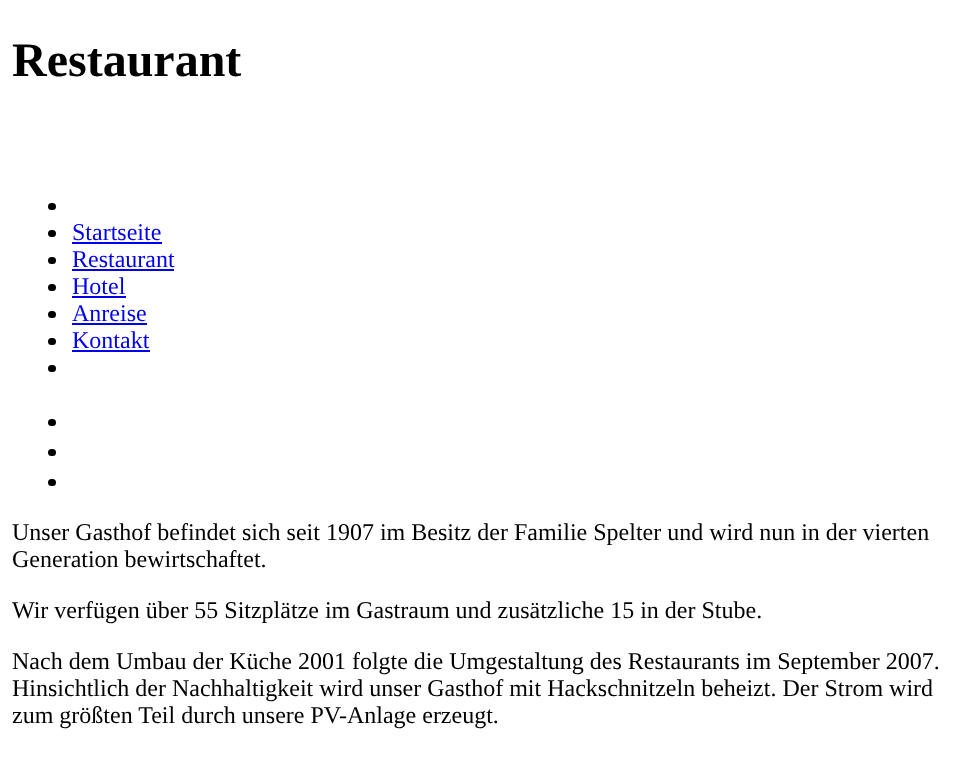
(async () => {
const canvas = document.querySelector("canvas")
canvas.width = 954
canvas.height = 762
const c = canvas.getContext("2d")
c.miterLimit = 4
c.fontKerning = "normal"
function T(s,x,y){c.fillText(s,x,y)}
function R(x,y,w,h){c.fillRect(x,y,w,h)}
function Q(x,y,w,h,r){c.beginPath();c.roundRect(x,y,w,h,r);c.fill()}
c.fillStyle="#fff"
R(0,0,954,762)
c.font="bold 48px Liberation Serif"
c.fillStyle="#000"
T("Restaurant",12,76)
Q(48,203,8,7,3.5)
Q(48,230,8,7,3.5)
c.font="24px Liberation Serif"
c.fillStyle="#00e"
T("Startseite",72,240)
R(72,242,90,2)
c.fillStyle="#000"
Q(48,257,8,7,3.5)
c.fillStyle="#00e"
T("Restaurant",72,267)
R(72,269,102,2)
c.fillStyle="#000"
Q(48,284,8,7,3.5)
c.fillStyle="#00e"
T("Hotel",72,294)
R(72,296,54,2)
c.fillStyle="#000"
Q(48,311,8,7,3.5)
c.fillStyle="#00e"
T("Anreise",72,321)
R(72,323,75,2)
c.fillStyle="#000"
Q(48,338,8,7,3.5)
c.fillStyle="#00e"
T("Kontakt",72,348)
R(72,350,78,2)
c.fillStyle="#000"
Q(48,365,8,7,3.5)
Q(48,419,8,7,3.5)
Q(48,449,8,7,3.5)
Q(48,479,8,7,3.5)
T("Unser Gasthof befindet sich seit 1907 im Besitz der Familie Spelter und wird nun in der vierten",12,540)
T("Generation bewirtschaftet.",12,567)
T("Wir verfügen über 55 Sitzplätze im Gastraum und zusätzliche 15 in der Stube.",12,618)
T("Nach dem Umbau der Küche 2001 folgte die Umgestaltung des Restaurants im September 2007.",12,669)
T("Hinsichtlich der Nachhaltigkeit wird unser Gasthof mit Hackschnitzeln beheizt. Der Strom wird",12,696)
T("zum größten Teil durch unsere PV-Anlage erzeugt.",12,723)
})()
